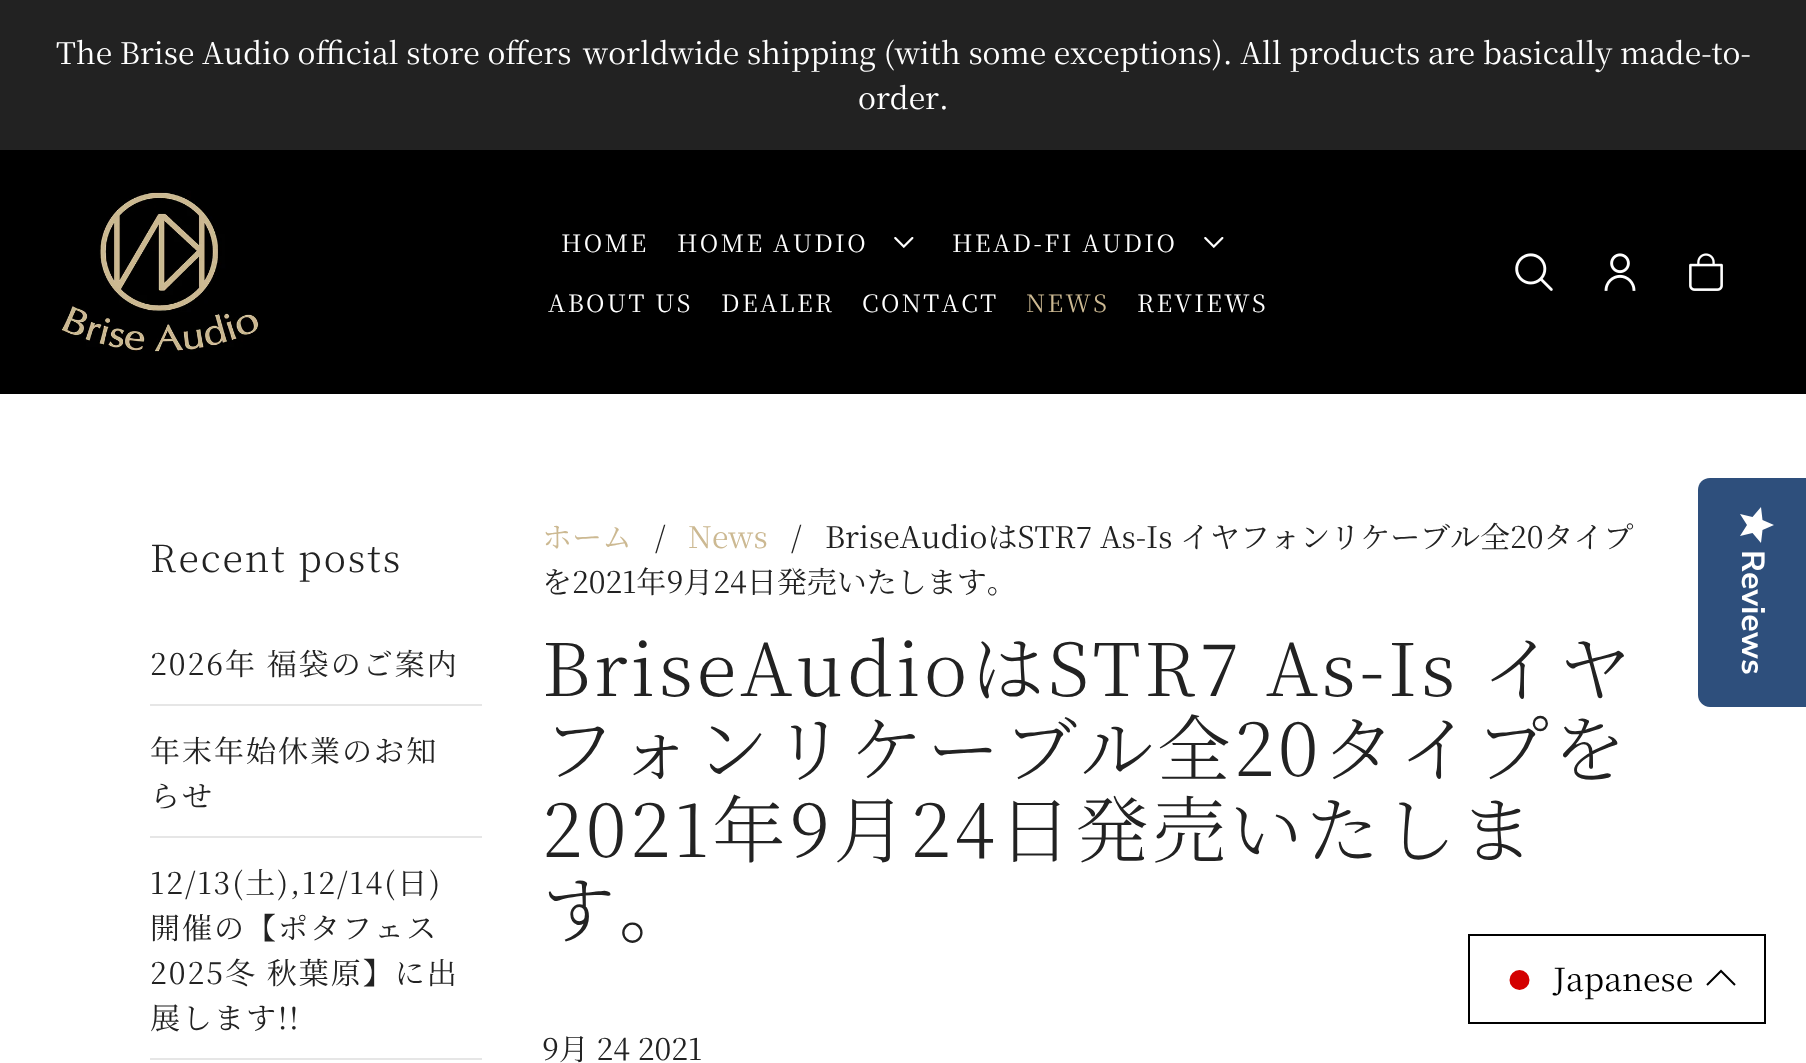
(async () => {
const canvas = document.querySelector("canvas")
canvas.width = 1806
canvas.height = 1063
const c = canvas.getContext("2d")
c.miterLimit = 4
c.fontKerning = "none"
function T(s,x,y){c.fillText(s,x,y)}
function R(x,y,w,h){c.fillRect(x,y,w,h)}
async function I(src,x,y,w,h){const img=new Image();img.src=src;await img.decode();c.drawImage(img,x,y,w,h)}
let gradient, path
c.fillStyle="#fff"
R(0,0,1806,1063)
c.fillStyle="#000"
R(0,150,1806,244)
c.fillStyle="#222"
R(0,0,1806,150)
c.font="30.02px Noto Serif JP"
c.fillStyle="#fff"
T("The Brise Audio official store offers",56,64)
T("worldwide shipping (with some exceptions). All products",583,64)
T("are basically made-to-",1428,64)
T("order.",858,109)
await I("1.png",60,191,199,161)
c.letterSpacing="2.4px"
c.font="24px Noto Serif JP"
T("HOME",561,252)
T("HOME AUDIO",677,252)
await I("2.png",894,237,20,11)
T("HEAD-FI AUDIO",952,252)
await I("2.png",1204,237,20,11)
T("ABOUT US",548,312)
T("DEALER",721,312)
T("CONTACT",862,312)
c.fillStyle="#ccb992"
T("NEWS",1026,312)
c.fillStyle="#fff"
T("REVIEWS",1137,312)
await I("3.png",1515,253,38,38)
await I("4.png",1604,253,32,38)
await I("5.png",1689,253,34,38)
c.letterSpacing="1.9px"
c.font="300 37.5px Noto Serif JP"
c.fillStyle="#222"
T("Recent posts",150,572)
c.fillStyle="#e6e6e6"
R(150,704,332,2)
c.letterSpacing="2px"
c.font="30.02px Noto Serif JP"
c.fillStyle="#222"
T("2026年 福袋のご案内",150,675)
c.fillStyle="#e6e6e6"
R(150,836,332,2)
c.fillStyle="#222"
T("年末年始休業のお知",150,762)
T("らせ",150,807)
c.fillStyle="#e6e6e6"
R(150,1058,332,2)
c.fillStyle="#222"
T("12/13(土),12/14(日)",150,894)
T("開催の【ポタフェス",150,939)
T("2025冬 秋葉原】に出",150,984)
T("展します!!",150,1029)
c.letterSpacing="0px"
c.fillStyle="#ccb992"
T("ホーム",542,548)
c.fillStyle="#222"
T("/",655,548)
c.fillStyle="#ccb992"
T("News",688,548)
c.fillStyle="#222"
T("/",791,548)
T("BriseAudioはSTR7 As-Is イヤフォンリケー",825,548)
T("ブル全20タイプ",1420,548)
T("を2021年9月24日発売いたします。",542,593)
c.letterSpacing="3.7px"
c.font="300 73.25px Noto Serif JP"
T("BriseAudioはSTR7 As-Is イヤ",542,696)
T("フォンリケーブ",542,776)
T("ル全20タイプを",1080,776)
T("2021年9月24日発売いたしま",542,857)
T("す。",542,937)
c.letterSpacing="0px"
c.font="30.02px Noto Serif JP"
T("9月 24 2021",542,1060)
c.fillStyle="#2e4f7c"
path = new Path2D("M1806 478v229h-96c-7 0-12-6-12-12v-205c0-7 5-12 12-12z")
c.fill(path)
gradient = c.createLinearGradient(1774,507,1774,543)
gradient.addColorStop(1,"#fff")
gradient.addColorStop(1,"#eaeaea")
c.fillStyle = gradient
path = new Path2D("M1747 525l-7 11l12.5-3l8.5 10l1.5-13l11.5-5l-11.5-5l-1.5-13l-8.5 10l-12.5-3z")
c.fill(path)
c.font="200 32px Nunito Sans"
c.fillStyle="#fff"
c.save()
c.translate(1742,550)
c.rotate(90 * Math.PI / 180)
c.fillText("Reviews",0,0)
c.restore()
c.strokeStyle="#000"
c.lineWidth=2
c.strokeRect(1469,935,296,88)
c.fillStyle="#d30000"
c.beginPath()
c.arc(1519.5,980,10,0,7)
c.fill()
c.font="32px Noto Serif JP"
c.fillStyle="#000"
T("Japanese",1553,991)
path = new Path2D("M1735 985l-14-14l-14 14")
c.stroke(path)
})()
